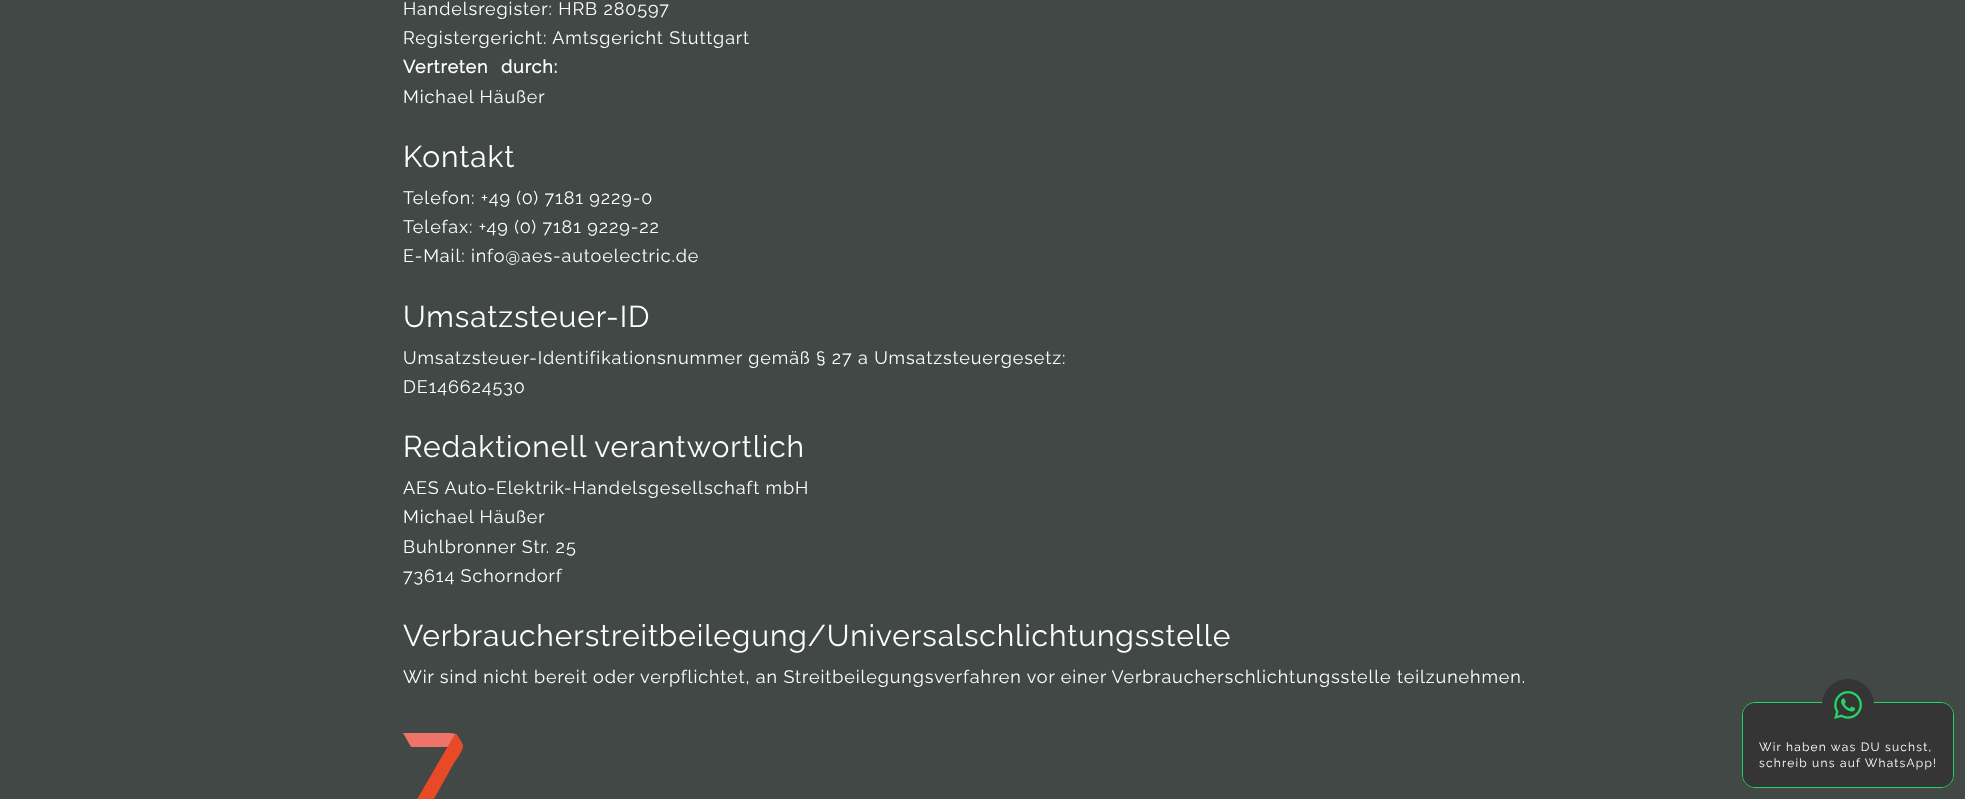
(async () => {
const canvas = document.querySelector("canvas")
canvas.width = 1965
canvas.height = 799
const c = canvas.getContext("2d")
c.miterLimit = 4
c.fontKerning = "normal"
function T(s,x,y){c.fillText(s,x,y)}
function R(x,y,w,h){c.fillRect(x,y,w,h)}
function Q(x,y,w,h,r){c.beginPath();c.roundRect(x,y,w,h,r);c.fill()}
async function I(src,x,y,w,h){const img=new Image();img.src=src;await img.decode();c.drawImage(img,x,y,w,h)}
let path
c.fillStyle="#414846"
R(0,0,1965,799)
c.letterSpacing="0.9px"
c.font="18px Raleway"
c.fillStyle="#fff"
T("Handelsregister: HRB 280597",403,15)
T("Registergericht: Amtsgericht Stuttgart",403,44)
c.wordSpacing="7px"
c.font="bold 18px Raleway"
T("Vertreten durch:",403,73)
c.wordSpacing="0px"
c.font="18px Raleway"
T("Michael Häußer",403,103)
c.font="30px Raleway"
T("Kontakt",403,167)
c.font="18px Raleway"
T("Telefon: +49 (0) 7181 9229-0",403,204)
T("Telefax: +49 (0) 7181 9229-22",403,233)
T("E-Mail: info@aes-autoelectric.de",403,262)
c.font="30px Raleway"
T("Umsatzsteuer-ID",403,327)
c.font="18px Raleway"
T("Umsatzsteuer-Identifikationsnummer gemäß § 27 a Umsatzsteuergesetz:",403,364)
T("DE146624530",403,393)
c.font="30px Raleway"
T("Redaktionell verantwortlich",403,457)
c.font="18px Raleway"
T("AES Auto-Elektrik-Handelsgesellschaft mbH",403,494)
T("Michael Häußer",403,523)
T("Buhlbronner Str. 25",403,553)
T("73614 Schorndorf",403,582)
c.font="30px Raleway"
T("Verbraucherstreitbeilegung/Universalschlichtungsstelle",403,646)
c.font="18px Raleway"
T("Wir sind nicht bereit oder verpflichtet, an Streitbeilegungsverfahren vor einer Verbraucherschlichtungsstelle teilzunehmen.",403,683)
c.fillStyle="#ee7368"
path = new Path2D("M451 733h-48l8 14h52c0-3-5-11-7-13z")
c.fill(path)
c.fillStyle="#e84a28"
path = new Path2D("M463 747c0 3-8 15-9 16l-29 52c-3 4-4 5-10 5h-10l50-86c3 2 8 9 8 13z")
c.fill(path)
c.beginPath()
c.roundRect(1742.5,702.5,211,85,12.5)
c.strokeStyle="#25d366"
c.stroke()
c.fillStyle="#353535"
Q(1743,703,210,84,12)
c.beginPath()
c.arc(1848,705,26,0,7)
c.fill()
await I("1.png",1834,691,28,28)
c.letterSpacing="1.2px"
c.font="12px Raleway"
c.fillStyle="#fff"
T("Wir haben was DU suchst,",1759,751)
T("schreib uns auf WhatsApp!",1759,767)
})()
